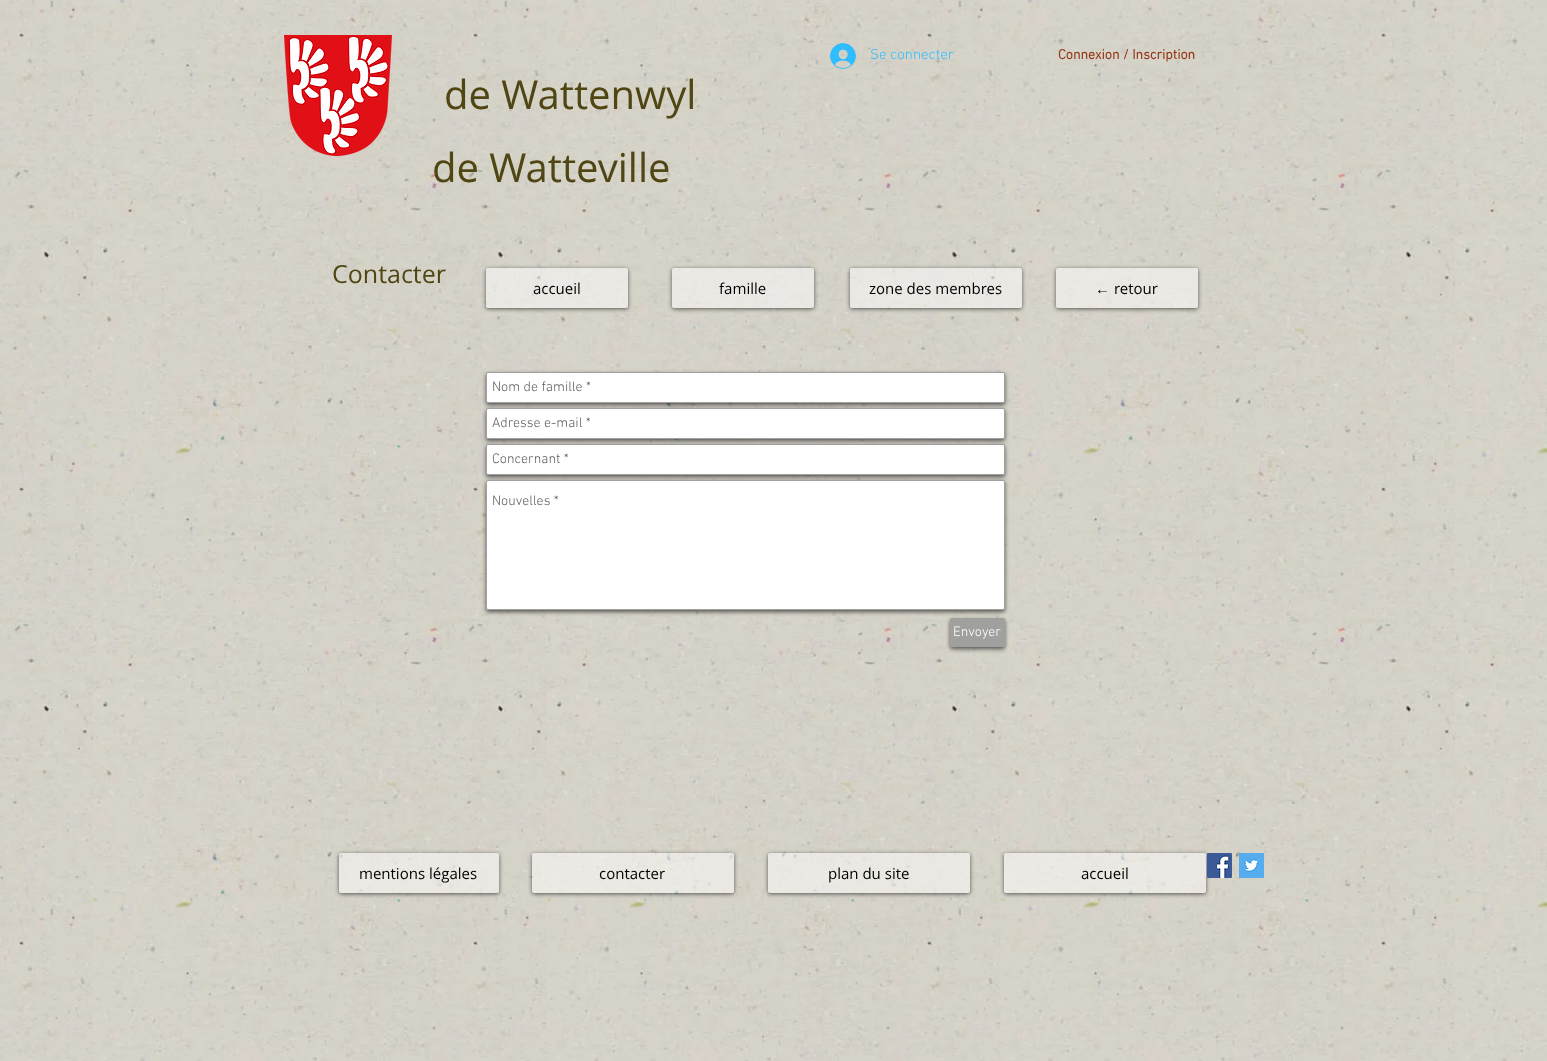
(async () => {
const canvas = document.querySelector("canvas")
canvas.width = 1547
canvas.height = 1061
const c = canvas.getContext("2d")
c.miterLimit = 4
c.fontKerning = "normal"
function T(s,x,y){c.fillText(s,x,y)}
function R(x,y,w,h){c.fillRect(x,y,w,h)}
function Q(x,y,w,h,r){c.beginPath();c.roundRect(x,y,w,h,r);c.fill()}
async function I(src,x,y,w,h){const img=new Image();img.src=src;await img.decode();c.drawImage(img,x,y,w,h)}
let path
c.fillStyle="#fff"
R(0,0,1547,1061)
await I("1.png",0,0,1547,1061)
await I("2.png",284,35,108,121)
await I("3.png",830,43,26,26)
c.font="300 15px 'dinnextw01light'"
c.fillStyle="#30bdff"
T("Se connecter",870,59)
c.font="bold 14px 'dinnextw01light'"
c.fillStyle="#943616"
T("Connexion / Inscription",1058,59)
c.font="40px Open Sans"
c.fillStyle="#4f4614"
T("de Wattenwyl",444,109)
T("de Watteville",432,182)
c.font="25px Open Sans"
T("Contacter",332,283)
c.save()
path = new Path2D("M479 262h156v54h-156zm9 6h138c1 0 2 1 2 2v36c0 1-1 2-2 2h-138c-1 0-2-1-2-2v-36c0-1 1-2 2-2z")
c.clip(path,"evenodd")
c.fillStyle="#00000099"
c.filter="blur(2px)"
c.beginPath()
c.roundRect(486,269,142,40,2)
c.fill()
c.filter="none"
c.restore()
c.fillStyle="#ffffff82"
Q(486,268,142,40,2)
c.font="15px Open Sans"
c.fillStyle="#000"
T("accueil",533,294)
c.save()
path = new Path2D("M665 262h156v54h-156zm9 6h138c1 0 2 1 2 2v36c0 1-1 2-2 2h-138c-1 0-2-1-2-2v-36c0-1 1-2 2-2z")
c.clip(path,"evenodd")
c.fillStyle="#00000099"
c.filter="blur(2px)"
c.beginPath()
c.roundRect(672,269,142,40,2)
c.fill()
c.filter="none"
c.restore()
c.fillStyle="#ffffff82"
Q(672,268,142,40,2)
c.fillStyle="#000"
T("famille",719,294)
c.save()
path = new Path2D("M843 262h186v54h-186zm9 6h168c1 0 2 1 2 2v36c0 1-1 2-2 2h-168c-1 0-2-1-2-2v-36c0-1 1-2 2-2z")
c.clip(path,"evenodd")
c.fillStyle="#00000099"
c.filter="blur(2px)"
c.beginPath()
c.roundRect(850,269,172,40,2)
c.fill()
c.filter="none"
c.restore()
c.fillStyle="#ffffff82"
Q(850,268,172,40,2)
c.fillStyle="#000"
T("zone des membres",869,294)
c.save()
path = new Path2D("M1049 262h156v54h-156zm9 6h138c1 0 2 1 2 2v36c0 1-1 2-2 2h-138c-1 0-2-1-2-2v-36c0-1 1-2 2-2z")
c.clip(path,"evenodd")
c.fillStyle="#00000099"
c.filter="blur(2px)"
c.beginPath()
c.roundRect(1056,269,142,40,2)
c.fill()
c.filter="none"
c.restore()
c.fillStyle="#ffffff82"
Q(1056,268,142,40,2)
c.font="15px Liberation Sans"
c.fillStyle="#000"
T("←",1095,294)
c.font="15px Open Sans"
T("retour",1114,294)
c.fillStyle="#00000099"
c.filter="blur(2px)"
c.beginPath()
c.roundRect(486,374,519,31,2)
c.fill()
c.filter="none"
c.fillStyle="#fff"
c.beginPath()
c.roundRect(486.5,372.5,518,30,1.5)
c.fill()
c.strokeStyle="#a0a09f"
c.stroke()
c.font="300 14px 'dinnextw01light'"
c.fillStyle="#605e5e"
T("Nom de famille *",492,391)
c.fillStyle="#00000099"
c.filter="blur(2px)"
c.beginPath()
c.roundRect(486,410,519,31,2)
c.fill()
c.filter="none"
c.fillStyle="#fff"
c.beginPath()
c.roundRect(486.5,408.5,518,30,1.5)
c.fill()
c.stroke()
c.fillStyle="#605e5e"
T("Adresse e-mail *",492,427)
c.fillStyle="#00000099"
c.filter="blur(2px)"
c.beginPath()
c.roundRect(486,446,519,31,2)
c.fill()
c.filter="none"
c.fillStyle="#fff"
c.beginPath()
c.roundRect(486.5,444.5,518,30,1.5)
c.fill()
c.stroke()
c.fillStyle="#605e5e"
T("Concernant *",492,463)
c.fillStyle="#00000099"
c.filter="blur(2px)"
c.beginPath()
c.roundRect(486,482,519,130,2)
c.fill()
c.filter="none"
c.fillStyle="#fff"
c.beginPath()
c.roundRect(486.5,480.5,518,129,1.5)
c.fill()
c.stroke()
c.fillStyle="#605e5e"
T("Nouvelles *",492,505)
c.fillStyle="#00000099"
c.filter="blur(2px)"
c.beginPath()
c.roundRect(950,620,55,29,2)
c.fill()
c.filter="none"
c.fillStyle="#a0a09f"
Q(950,618,55,29,2)
c.fillStyle="#fff"
T("Envoyer",953,636)
c.save()
path = new Path2D("M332 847h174v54h-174zm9 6h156c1 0 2 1 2 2v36c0 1-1 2-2 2h-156c-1 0-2-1-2-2v-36c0-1 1-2 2-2z")
c.clip(path,"evenodd")
c.fillStyle="#00000099"
c.filter="blur(2px)"
c.beginPath()
c.roundRect(339,854,160,40,2)
c.fill()
c.filter="none"
c.restore()
c.fillStyle="#ffffff82"
Q(339,853,160,40,2)
c.font="15px Open Sans"
c.fillStyle="#000"
T("mentions légales",359,879)
c.save()
path = new Path2D("M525 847h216v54h-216zm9 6h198c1 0 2 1 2 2v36c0 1-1 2-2 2h-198c-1 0-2-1-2-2v-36c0-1 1-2 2-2z")
c.clip(path,"evenodd")
c.fillStyle="#00000099"
c.filter="blur(2px)"
c.beginPath()
c.roundRect(532,854,202,40,2)
c.fill()
c.filter="none"
c.restore()
c.fillStyle="#ffffff82"
Q(532,853,202,40,2)
c.fillStyle="#000"
T("contacter",599,879)
c.save()
path = new Path2D("M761 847h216v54h-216zm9 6h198c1 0 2 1 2 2v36c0 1-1 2-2 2h-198c-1 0-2-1-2-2v-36c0-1 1-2 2-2z")
c.clip(path,"evenodd")
c.fillStyle="#00000099"
c.filter="blur(2px)"
c.beginPath()
c.roundRect(768,854,202,40,2)
c.fill()
c.filter="none"
c.restore()
c.fillStyle="#ffffff82"
Q(768,853,202,40,2)
c.fillStyle="#000"
T("plan du site",828,879)
c.save()
path = new Path2D("M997 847h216v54h-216zm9 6h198c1 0 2 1 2 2v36c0 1-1 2-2 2h-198c-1 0-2-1-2-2v-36c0-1 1-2 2-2z")
c.clip(path,"evenodd")
c.fillStyle="#00000099"
c.filter="blur(2px)"
c.beginPath()
c.roundRect(1004,854,202,40,2)
c.fill()
c.filter="none"
c.restore()
c.fillStyle="#ffffff82"
Q(1004,853,202,40,2)
c.fillStyle="#000"
T("accueil",1081,879)
await I("4.png",1207,853,25,25)
await I("5.png",1239,853,25,25)
})()
